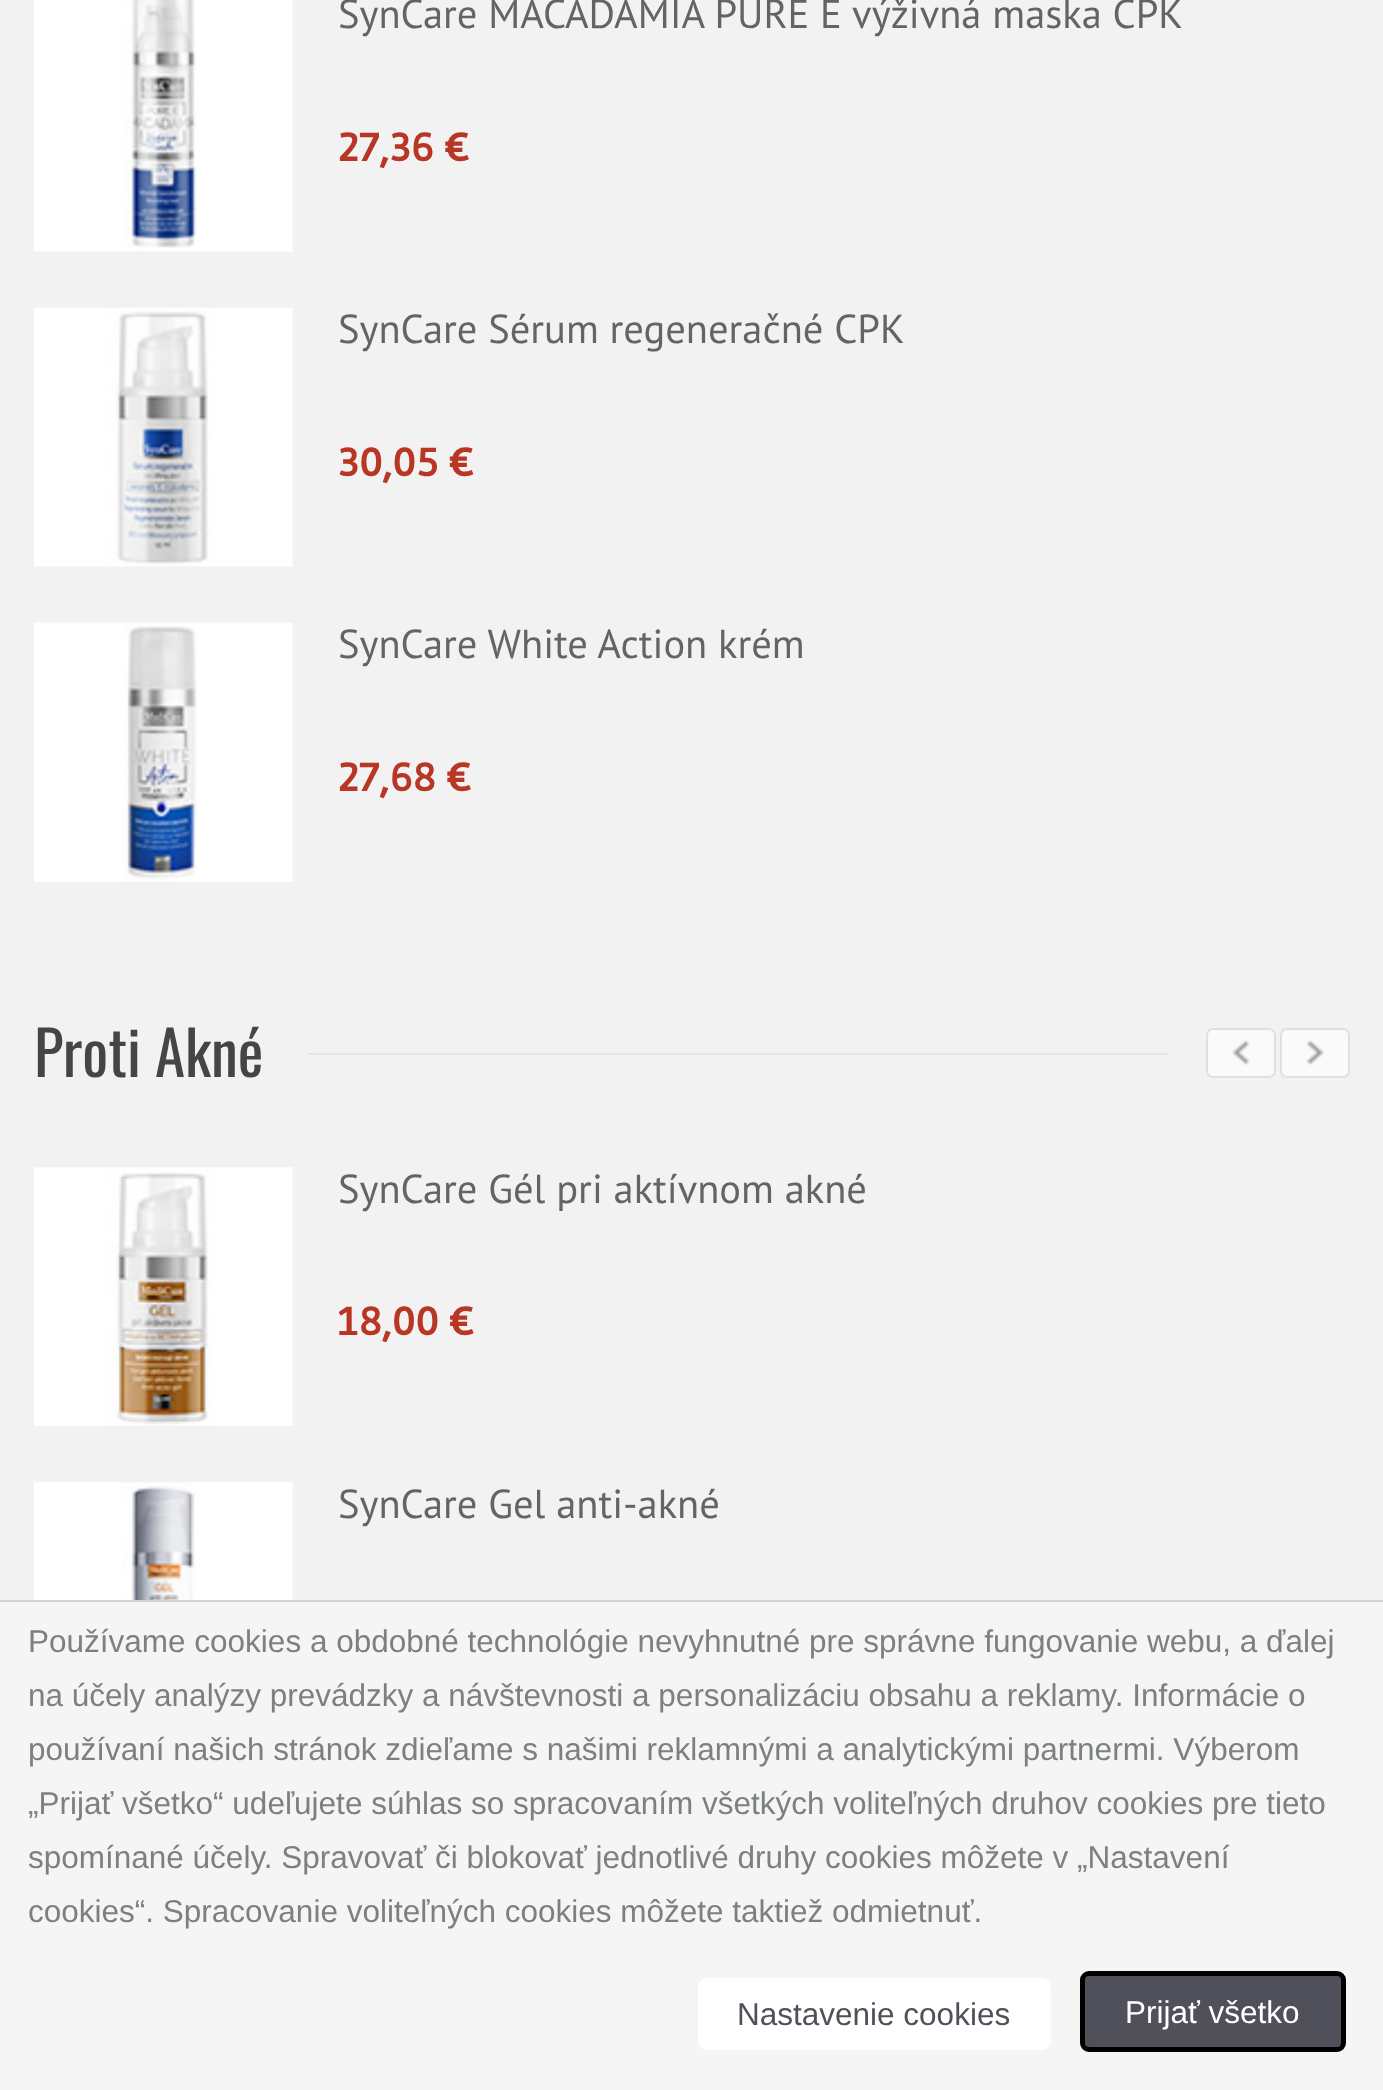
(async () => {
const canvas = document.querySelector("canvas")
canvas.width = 1383
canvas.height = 2090
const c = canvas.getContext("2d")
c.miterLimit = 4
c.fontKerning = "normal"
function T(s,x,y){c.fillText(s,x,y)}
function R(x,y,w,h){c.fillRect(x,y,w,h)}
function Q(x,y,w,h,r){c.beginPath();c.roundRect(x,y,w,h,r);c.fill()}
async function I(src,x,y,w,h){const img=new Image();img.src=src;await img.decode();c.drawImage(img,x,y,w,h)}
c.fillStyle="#f2f2f2"
R(0,0,1383,2090)
await I("1.png",34,0,259,252)
c.font="40.5px PT Sans"
c.fillStyle="#646464"
T("SynCare MACADAMIA PURE E výživná maska CPK",338,28)
c.font="bold 40.5px Gudea"
c.fillStyle="#b93524"
T("27,36 €",338,161)
await I("2.png",34,307,259,260)
c.font="40.5px PT Sans"
c.fillStyle="#646464"
T("SynCare Sérum regeneračné CPK",338,343)
c.font="bold 40.5px Gudea"
c.fillStyle="#b93524"
T("30,05 €",338,476)
await I("3.png",34,622,259,260)
c.font="40.5px PT Sans"
c.fillStyle="#646464"
T("SynCare White Action krém",338,658)
c.font="bold 40.5px Gudea"
c.fillStyle="#b93524"
T("27,68 €",338,791)
c.font="61px Oswald"
c.fillStyle="#444645"
T("Proti Akné",34,1077)
c.fillStyle="#e8e6e2"
R(308,1053,860,2)
c.fillStyle="#fafafa"
Q(1206,1028,70,50,7)
await I("4.png",1232,1040,18,25)
c.beginPath()
c.roundRect(1207,1029,68,48,6)
c.strokeStyle="#e0e0e0"
c.lineWidth=2
c.stroke()
Q(1280,1028,70,50,7)
await I("5.png",1306,1040,18,25)
c.beginPath()
c.roundRect(1281,1029,68,48,6)
c.stroke()
await I("6.png",34,1167,259,259)
c.font="40.5px PT Sans"
c.fillStyle="#646464"
T("SynCare Gél pri aktívnom akné",338,1203)
c.font="bold 40.5px Gudea"
c.fillStyle="#b93524"
T("18,00 €",338,1335)
await I("7.png",34,1482,259,118)
c.font="40.5px PT Sans"
c.fillStyle="#646464"
T("SynCare Gel anti-akné",338,1518)
c.fillStyle="#f5f5f6"
R(0,1602,1383,488)
c.fillStyle="#d2d2d7"
R(0,1600,1383,2)
c.font="31.5px Liberation Sans"
c.fillStyle="#7c807e"
T("Používame cookies a obdobné technológie nevyhnutné pre správne fungovanie webu, a ďalej",28,1652)
T("na účely analýzy prevádzky a návštevnosti a personalizáciu obsahu a reklamy. Informácie o",28,1706)
T("používaní našich stránok zdieľame s našimi reklamnými a analytickými partnermi. Výberom",28,1760)
T("„Prijať všetko“ udeľujete súhlas so spracovaním všetkých voliteľných druhov cookies pre tieto",28,1814)
T("spomínané účely. Spravovať či blokovať jednotlivé druhy cookies môžete v „Nastavení",28,1868)
T("cookies“. Spracovanie voliteľných cookies môžete taktiež odmietnuť.",28,1922)
c.fillStyle="#fff"
Q(698,1978,353,72,9)
c.fillStyle="#50505a"
T("Nastavenie cookies",737,2025)
c.beginPath()
c.roundRect(1082.5,1973.5,261,76,6.5)
c.fill()
c.strokeStyle="#000"
c.lineWidth=5
c.stroke()
c.fillStyle="#fff"
T("Prijať všetko",1125,2023)
})()
